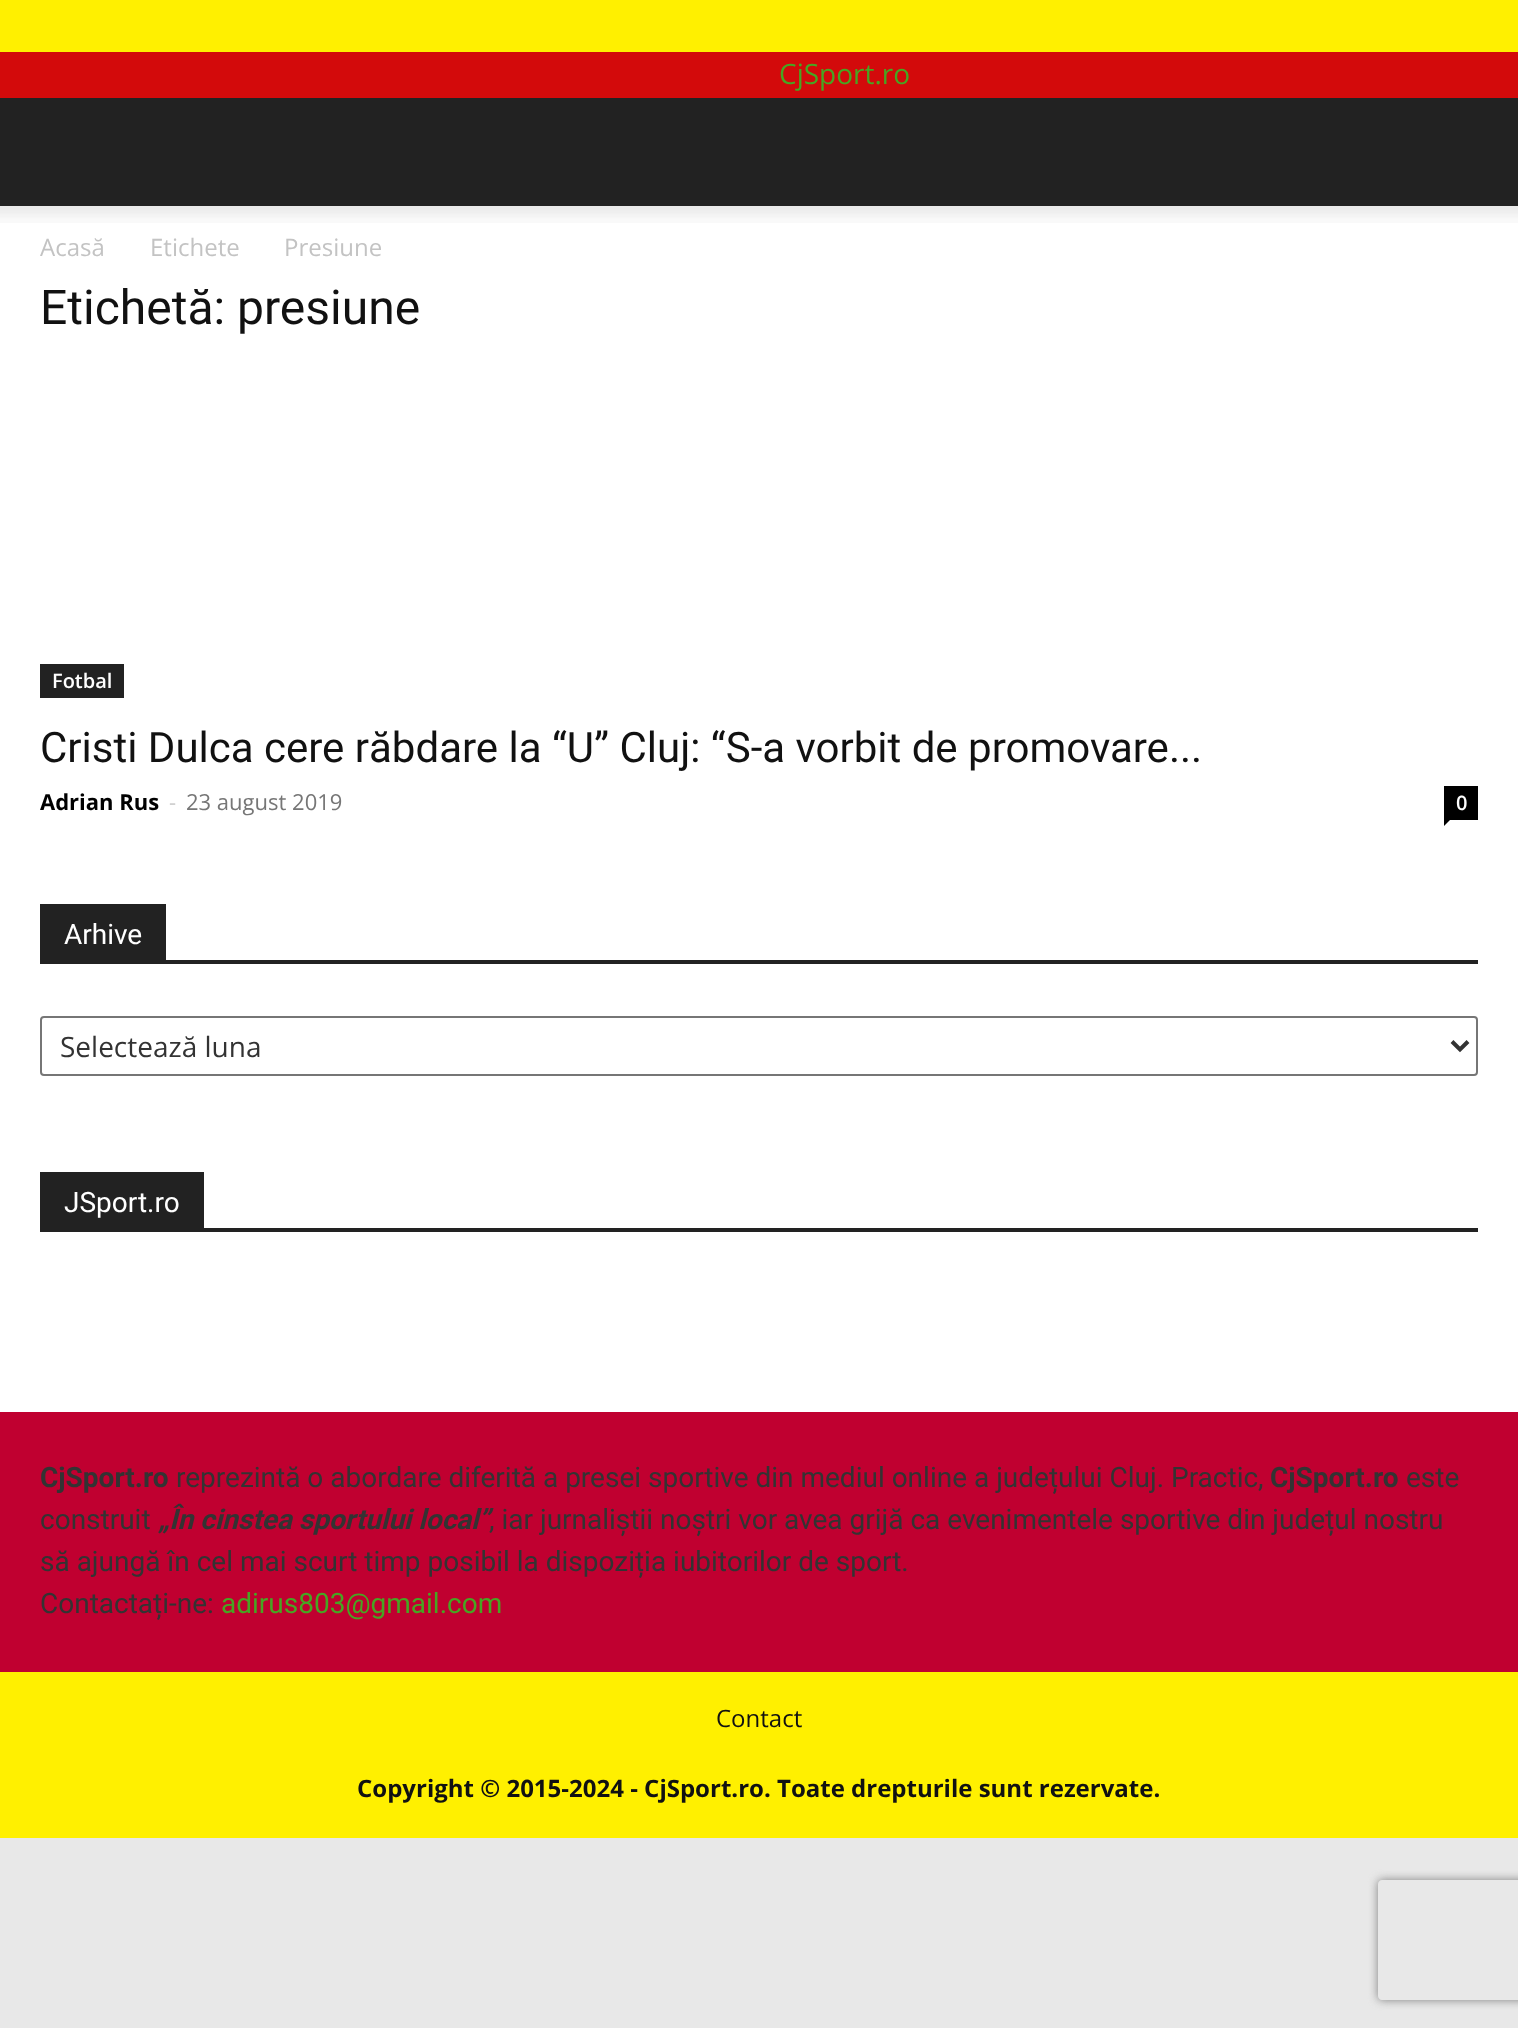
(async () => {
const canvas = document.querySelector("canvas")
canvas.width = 1518
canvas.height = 2028
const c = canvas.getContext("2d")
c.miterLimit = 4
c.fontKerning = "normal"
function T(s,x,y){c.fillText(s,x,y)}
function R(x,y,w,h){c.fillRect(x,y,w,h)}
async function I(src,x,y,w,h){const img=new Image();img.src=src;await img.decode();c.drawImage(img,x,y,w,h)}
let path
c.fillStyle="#e8e8e8"
R(0,0,1518,2028)
c.fillStyle="#fff000"
R(0,0,1518,52)
c.fillStyle="#d30a0b"
R(0,52,1518,46)
c.font="28px Open Sans"
c.fillStyle="#47a522"
T("CjSport.ro",779,84)
c.fillStyle="#222"
R(0,98,1518,108)
c.fillStyle="#fff"
R(0,206,1518,1206)
await I("1.png",0,206,1518,17)
c.font="24px Open Sans"
c.fillStyle="#c3c3c3"
T("Acasă",40,256)
T("Etichete",150,256)
T("Presiune",284,256)
c.font="48px Roboto"
c.fillStyle="#111"
T("Etichetă: presiune",40,324)
c.fillStyle="#222"
R(40,664,84,34)
c.font="600 20px Open Sans"
c.fillStyle="#fff"
T("Fotbal",52,688)
c.font="42px Roboto"
c.fillStyle="#111"
T("Cristi Dulca cere răbdare la “U” Cluj: “S-a vorbit de promovare...",40,762)
c.font="bold 22px Open Sans"
c.fillStyle="#000"
T("Adrian Rus",40,810)
c.font="22px Open Sans"
c.fillStyle="#ccc"
T("-",169,810)
c.fillStyle="#767676"
T("23 august 2019",186,810)
c.fillStyle="#000"
R(1444,786,34,34)
c.font="600 20px Open Sans"
c.fillStyle="#fff"
T("0",1456,810)
c.fillStyle="#000"
path = new Path2D("M1444 820h6l-6 6z")
c.fill(path)
c.fillStyle="#222"
R(40,960,1438,4)
R(40,904,126,56)
c.font="28px Roboto"
c.fillStyle="#fff"
T("Arhive",64,944)
c.beginPath()
c.roundRect(41,1017,1436,58,3)
c.strokeStyle="#767676"
c.lineWidth=2
c.stroke()
path = new Path2D("M1452 1041.5l8 8l8-8")
c.strokeStyle="#333"
c.lineWidth=4
c.stroke(path)
c.font="28px Open Sans"
c.fillStyle="#333"
T("Selectează luna",60,1057)
c.fillStyle="#222"
R(40,1228,1438,4)
R(40,1172,164,56)
c.font="28px Roboto"
c.fillStyle="#fff"
T("JSport.ro",64,1212)
c.fillStyle="#c00030"
R(0,1412,1518,260)
c.font="bold 28px Roboto"
c.fillStyle="#333"
T("CjSport.ro",40,1487)
c.font="28px Roboto"
T("reprezintă o abordare diferită a presei sportive din mediul online a județului Cluj. Practic,",176,1487)
c.font="bold 28px Roboto"
T("CjSport.ro",1270,1487)
c.font="28px Roboto"
T("este",1406,1487)
T("construit",40,1529)
c.font="italic bold 28px Roboto"
T("„În cinstea sportului local”",158,1529)
c.font="28px Roboto"
T(", iar jurnaliștii noștri vor avea grijă ca evenimentele sportive din județul nostru",489,1529)
T("să ajungă în cel mai scurt timp posibil la dispoziția iubitorilor de sport.",40,1571)
T("Contactați-ne:",40,1613)
c.fillStyle="#47a522"
T("adirus803@gmail.com",221,1613)
c.fillStyle="#fff000"
R(0,1672,1518,166)
c.font="24px Open Sans"
c.fillStyle="#111"
T("Contact",716,1727)
c.font="bold 24px Open Sans"
T("Copyright © 2015-2024 - CjSport.ro. Toate drepturile sunt rezervate.",357,1797)
c.save()
path = new Path2D("M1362 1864h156v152h-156zm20 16h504c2 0 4 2 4 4v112c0 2-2 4-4 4h-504c-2 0-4-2-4-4v-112c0-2 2-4 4-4z")
c.clip(path,"evenodd")
c.fillStyle="#808080"
c.filter="blur(5px)"
c.beginPath()
c.roundRect(1378,1880,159,120,4)
c.fill()
c.filter="none"
c.restore()
})()
